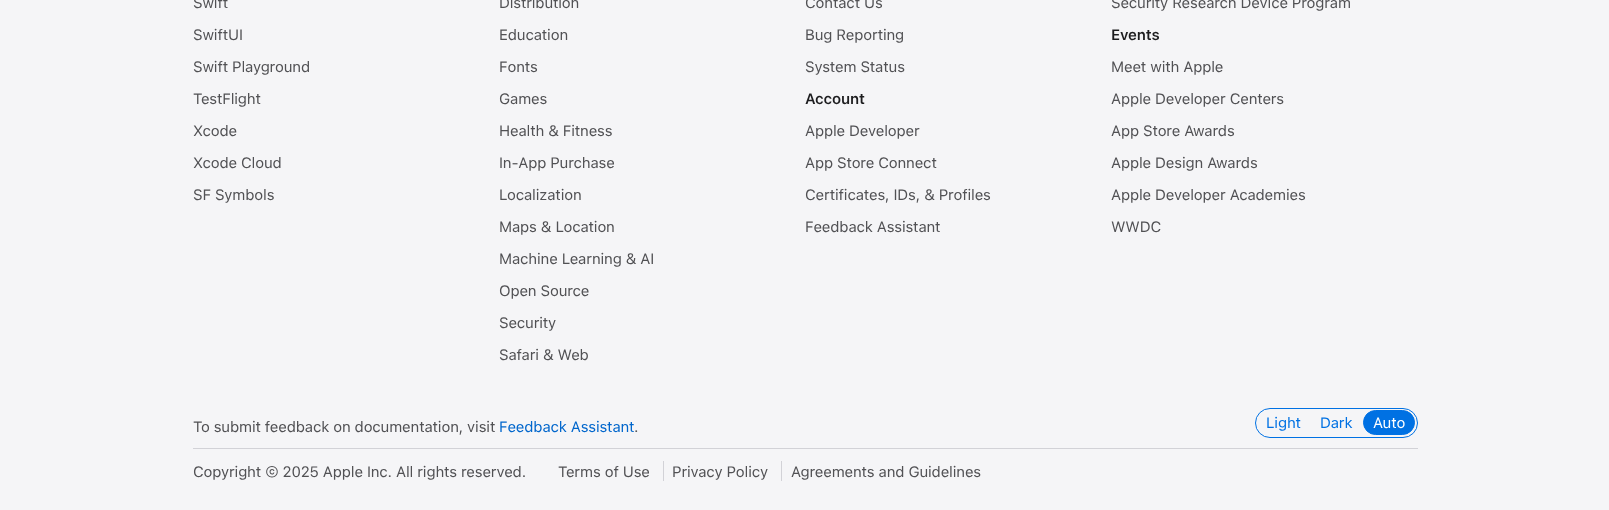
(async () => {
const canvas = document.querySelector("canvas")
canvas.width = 1609
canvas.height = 510
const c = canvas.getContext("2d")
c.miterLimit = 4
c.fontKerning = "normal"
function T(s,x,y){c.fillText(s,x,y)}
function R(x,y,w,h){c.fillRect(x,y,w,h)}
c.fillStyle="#f5f5f7"
R(0,0,1609,510)
c.letterSpacing="-0.15px"
c.font="15px SF Pro Text"
c.fillStyle="#515154"
T("Swift",193,8)
T("SwiftUI",193,40)
T("Swift Playground",193,72)
T("TestFlight",193,104)
T("Xcode",193,136)
T("Xcode Cloud",193,168)
T("SF Symbols",193,200)
T("Distribution",499,8)
T("Education",499,40)
T("Fonts",499,72)
T("Games",499,104)
T("Health & Fitness",499,136)
T("In-App Purchase",499,168)
T("Localization",499,200)
T("Maps & Location",499,232)
T("Machine Learning & AI",499,264)
T("Open Source",499,296)
T("Security",499,328)
T("Safari & Web",499,360)
T("Contact Us",805,8)
T("Bug Reporting",805,40)
T("System Status",805,72)
c.font="600 15px SF Pro Text"
c.fillStyle="#1d1d1f"
T("Account",805,104)
c.font="15px SF Pro Text"
c.fillStyle="#515154"
T("Apple Developer",805,136)
T("App Store Connect",805,168)
T("Certificates, IDs, & Profiles",805,200)
T("Feedback Assistant",805,232)
T("Security Research Device Program",1111,8)
c.font="600 15px SF Pro Text"
c.fillStyle="#1d1d1f"
T("Events",1111,40)
c.font="15px SF Pro Text"
c.fillStyle="#515154"
T("Meet with Apple",1111,72)
T("Apple Developer Centers",1111,104)
T("App Store Awards",1111,136)
T("Apple Design Awards",1111,168)
T("Apple Developer Academies",1111,200)
T("WWDC",1111,232)
c.fillStyle="#d2d2d7"
R(193,448,1225,1)
c.fillStyle="#515154"
T("To submit feedback on documentation, visit",193,432)
c.fillStyle="#06c"
T("Feedback Assistant",499,432)
c.fillStyle="#515154"
T(".",634,432)
c.beginPath()
c.roundRect(1255.5,408.5,162,29,14.5)
c.strokeStyle="#0071e3"
c.stroke()
c.fillStyle="#0071e3"
T("Light",1266,428)
T("Dark",1320,428)
c.beginPath()
c.roundRect(1363.5,410.5,51,24,12)
c.fill()
c.stroke()
c.fillStyle="#fff"
T("Auto",1373,428)
c.fillStyle="#515154"
T("Copyright © 2025 Apple Inc. All rights reserved.",193,477)
c.fillStyle="#d2d2d7"
R(663,461,1,20)
c.fillStyle="#515154"
T("Terms of Use",558,477)
c.fillStyle="#d2d2d7"
R(781,461,1,20)
c.fillStyle="#515154"
T("Privacy Policy",672,477)
T("Agreements and Guidelines",791,477)
})()
